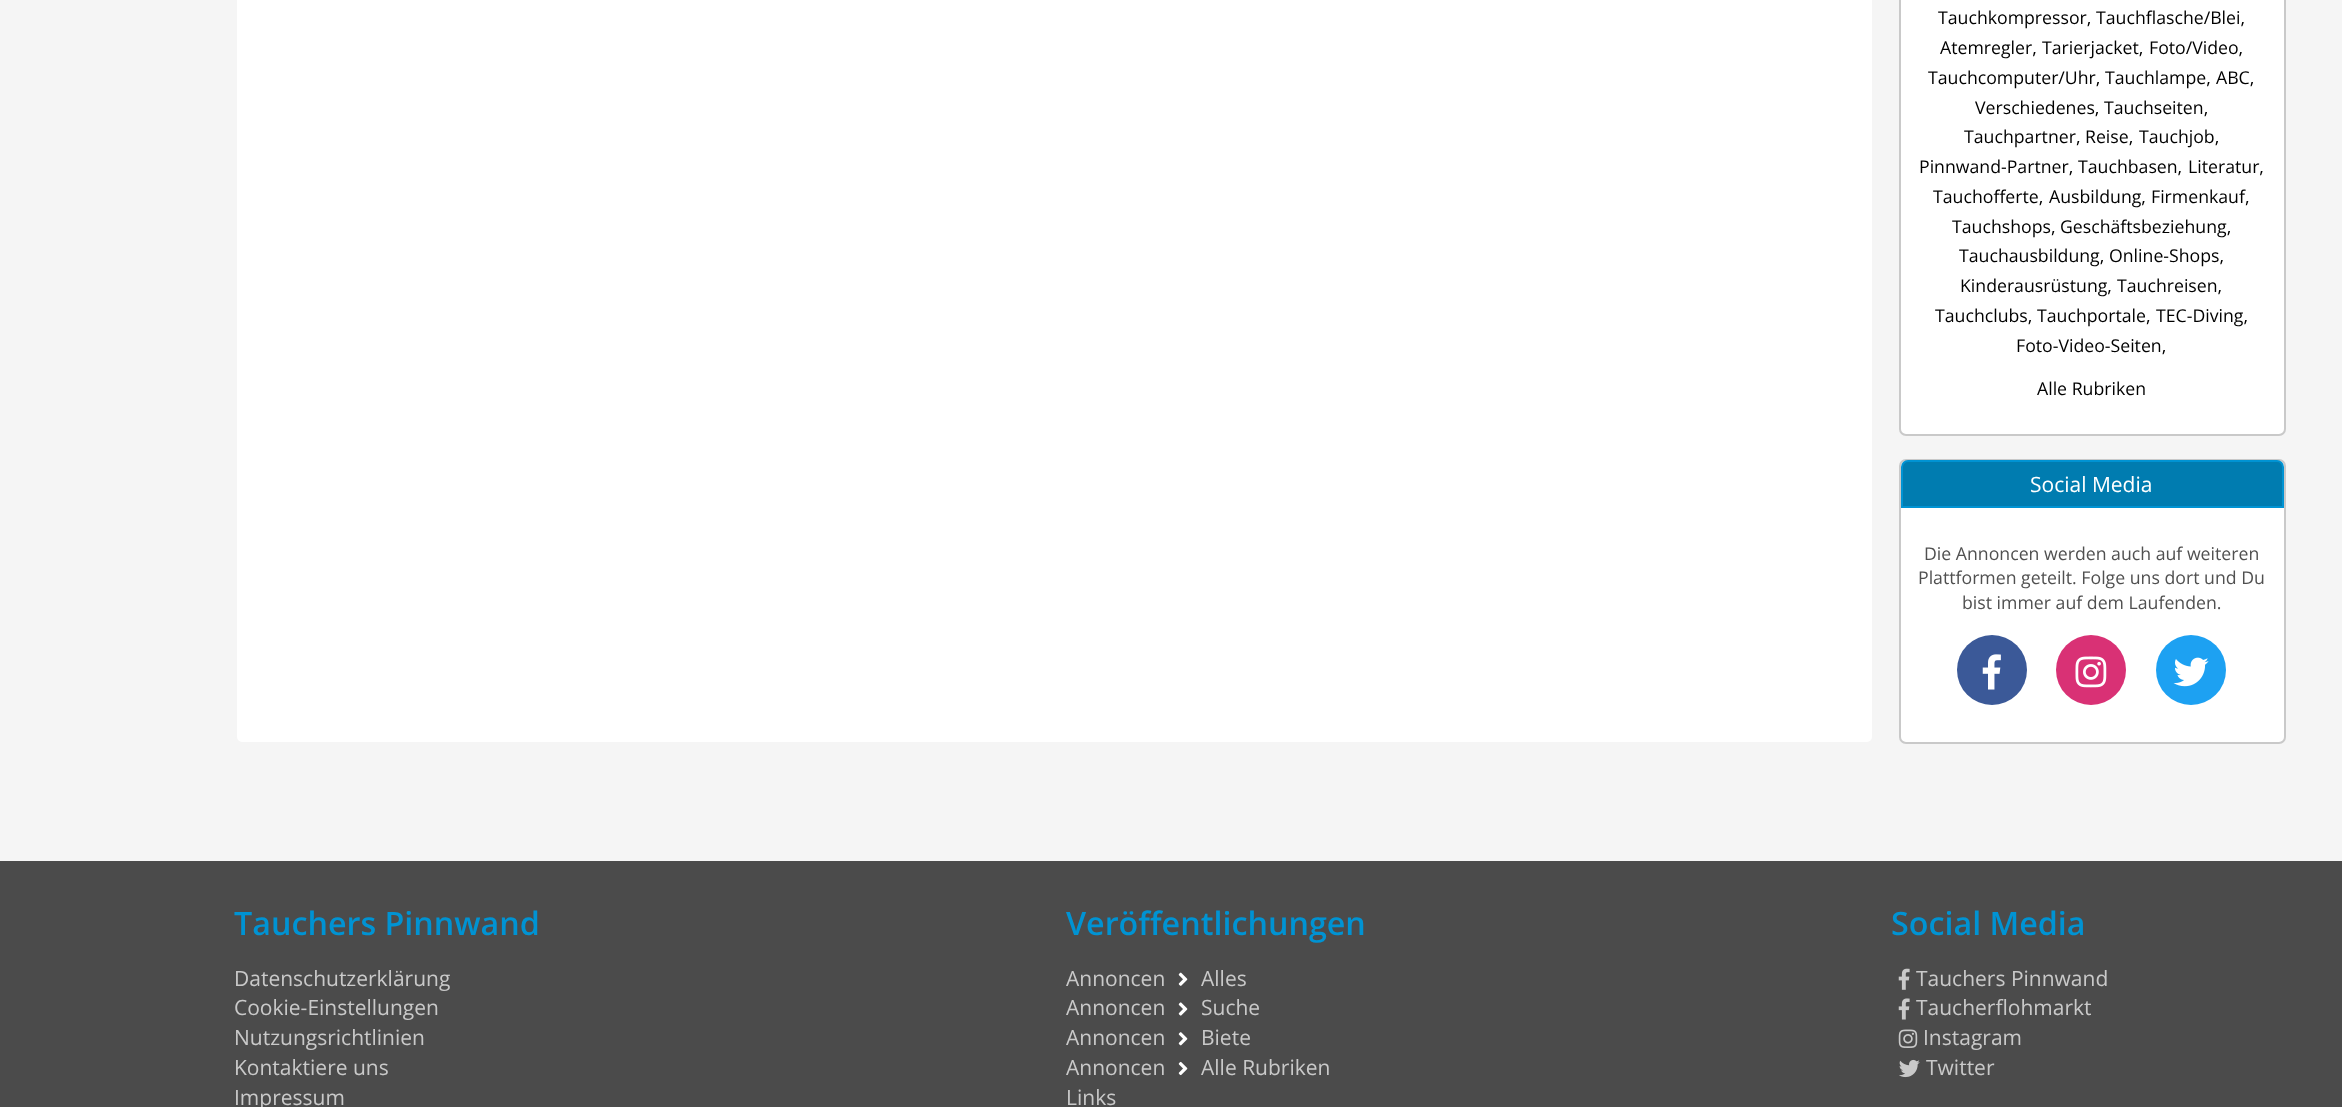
(async () => {
const canvas = document.querySelector("canvas")
canvas.width = 2342
canvas.height = 1107
const c = canvas.getContext("2d")
c.miterLimit = 4
c.fontKerning = "normal"
function T(s,x,y){c.fillText(s,x,y)}
function R(x,y,w,h){c.fillRect(x,y,w,h)}
async function I(src,x,y,w,h){const img=new Image();img.src=src;await img.decode();c.drawImage(img,x,y,w,h)}
c.fillStyle="#f5f5f5"
R(0,0,2342,1107)
c.fillStyle="#fff"
c.beginPath()
c.roundRect(236,-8,1637,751,6)
c.fill()
c.strokeStyle="#f5f5f5"
c.lineWidth=2
c.stroke()
c.beginPath()
c.roundRect(1900,-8,385,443,6)
c.fill()
c.strokeStyle="#c9c9c9"
c.stroke()
c.font="17.7px Open Sans"
c.fillStyle="#000"
T("Tauchkompressor,",1938,24)
T("Tauchflasche/Blei,",2096,24)
T("Atemregler,",1940,54)
T("Tarierjacket,",2042,54)
T("Foto/Video,",2149,54)
T("Tauchcomputer/Uhr,",1928,84)
T("Tauchlampe,",2105,84)
T("ABC,",2216,84)
T("Verschiedenes,",1975,114)
T("Tauchseiten,",2104,114)
T("Tauchpartner,",1964,143)
T("Reise,",2085,143)
T("Tauchjob,",2139,143)
T("Pinnwand-Partner,",1919,173)
T("Tauchbasen,",2078,173)
T("Literatur,",2188,173)
T("Tauchofferte,",1933,203)
T("Ausbildung,",2049,203)
T("Firmenkauf,",2151,203)
T("Tauchshops,",1952,233)
T("Geschäftsbeziehung,",2060,233)
T("Tauchausbildung,",1959,262)
T("Online-Shops,",2109,262)
T("Kinderausrüstung,",1960,292)
T("Tauchreisen,",2117,292)
T("Tauchclubs,",1935,322)
T("Tauchportale,",2037,322)
T("TEC-Diving,",2156,322)
T("Foto-Video-Seiten,",2016,352)
T("Alle Rubriken",2037,395)
c.fillStyle="#fff"
c.beginPath()
c.roundRect(1900,460,385,283,6)
c.fill()
c.stroke()
c.fillStyle="#007cb0"
c.beginPath()
c.roundRect(1902,461,381,46,[6,6,0,0])
c.fill()
c.strokeStyle="#0093d3"
c.stroke()
c.font="21px Open Sans"
c.fillStyle="#fff"
T("Social Media",2030,492)
c.font="17.7px Open Sans"
c.fillStyle="#505050"
T("Die Annoncen werden auch auf weiteren",1924,560)
T("Plattformen geteilt. Folge uns dort und Du",1918,584)
T("bist immer auf dem Laufenden.",1962,609)
c.fillStyle="#3b5998"
c.beginPath()
c.arc(1992,670,35,0,7)
c.fill()
await I("1.png",1982,654,19,36)
c.fillStyle="#d93175"
c.beginPath()
c.arc(2091,670,35,0,7)
c.fill()
await I("2.png",2075,656,32,32)
c.fillStyle="#1da1f2"
c.beginPath()
c.arc(2191,670,35,0,7)
c.fill()
await I("3.png",2173,657,36,30)
c.fillStyle="#4b4b4b"
R(0,861,2342,246)
c.font="600 32.25px Open Sans"
c.fillStyle="#0093d3"
T("Tauchers Pinnwand",234,935)
c.font="21px Open Sans"
c.fillStyle="#c9c9c9"
T("Datenschutzerklärung",234,986)
T("Cookie-Einstellungen",234,1015)
T("Nutzungsrichtlinien",234,1045)
T("Kontaktiere uns",234,1075)
T("Impressum",234,1105)
c.font="600 32.25px Open Sans"
c.fillStyle="#0093d3"
T("Veröffentlichungen",1066,935)
c.font="21px Open Sans"
c.fillStyle="#c9c9c9"
T("Annoncen",1066,986)
await I("4.png",1178,972,10,14)
T("Alles",1201,986)
T("Annoncen",1066,1015)
await I("5.png",1178,1002,10,14)
T("Suche",1201,1015)
T("Annoncen",1066,1045)
await I("6.png",1178,1032,10,14)
T("Biete",1201,1045)
T("Annoncen",1066,1075)
await I("7.png",1178,1061,10,15)
T("Alle Rubriken",1201,1075)
T("Links",1066,1105)
c.font="600 32.25px Open Sans"
c.fillStyle="#0093d3"
T("Social Media",1891,935)
await I("8.png",1898,968,12,22)
c.font="21px Open Sans"
c.fillStyle="#c9c9c9"
T("Tauchers Pinnwand",1916,986)
await I("9.png",1898,998,12,22)
T("Taucherflohmarkt",1916,1015)
await I("10.png",1898,1029,20,19)
T("Instagram",1923,1045)
await I("11.png",1899,1059,21,19)
T("Twitter",1926,1075)
})()
